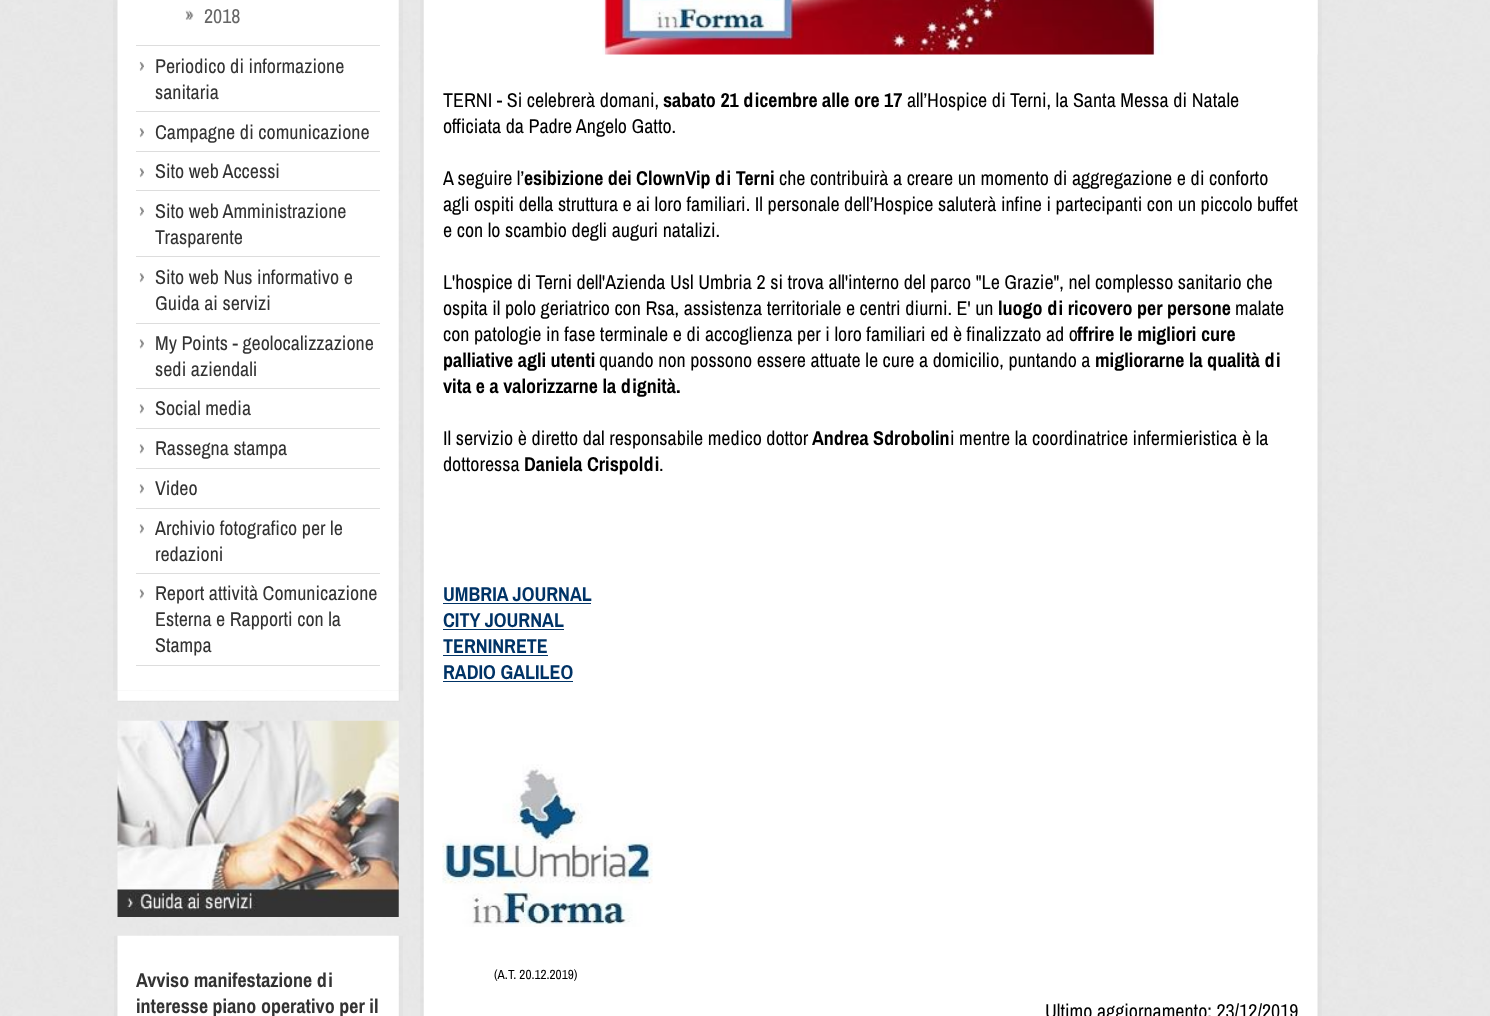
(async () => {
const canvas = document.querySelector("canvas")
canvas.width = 1490
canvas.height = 1016
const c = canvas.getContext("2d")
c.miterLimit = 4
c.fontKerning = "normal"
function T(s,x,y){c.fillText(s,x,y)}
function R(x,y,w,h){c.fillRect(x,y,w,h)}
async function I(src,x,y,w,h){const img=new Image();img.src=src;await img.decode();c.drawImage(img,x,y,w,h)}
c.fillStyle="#fff"
R(0,0,1490,1016)
await I("1.png",0,0,1490,1016)
await I("2.png",113,0,290,691)
c.fillStyle="#ddd"
R(136,45,244,1)
await I("3.png",185,10,9,10)
c.font="20px Archivo Narrow"
c.fillStyle="#666"
T("2018",204,23)
await I("4.png",139,61,5,10)
c.fillStyle="#ddd"
R(136,111,244,1)
c.fillStyle="#333"
T("Periodico di informazione",155,73)
T("sanitaria",155,99)
await I("5.png",139,128,5,10)
c.fillStyle="#ddd"
R(136,151,244,1)
c.fillStyle="#333"
T("Campagne di comunicazione",155,139)
await I("5.png",139,168,5,10)
c.fillStyle="#ddd"
R(136,190,244,1)
c.fillStyle="#333"
T("Sito web Accessi",155,178)
await I("4.png",139,206,5,10)
c.fillStyle="#ddd"
R(136,256,244,1)
c.fillStyle="#333"
T("Sito web Amministrazione",155,218)
T("Trasparente",155,244)
await I("5.png",139,273,5,10)
c.fillStyle="#ddd"
R(136,323,244,1)
c.fillStyle="#333"
T("Sito web Nus informativo e",155,284)
T("Guida ai servizi",155,310)
await I("6.png",139,339,5,10)
c.fillStyle="#ddd"
R(136,388,244,1)
c.fillStyle="#333"
T("My Points - geolocalizzazione",155,350)
T("sedi aziendali",155,376)
await I("6.png",139,404,5,10)
c.fillStyle="#ddd"
R(136,428,244,1)
c.fillStyle="#333"
T("Social media",155,415)
await I("6.png",139,444,5,10)
c.fillStyle="#ddd"
R(136,468,244,1)
c.fillStyle="#333"
T("Rassegna stampa",155,455)
await I("6.png",139,484,5,10)
c.fillStyle="#ddd"
R(136,508,244,1)
c.fillStyle="#333"
T("Video",155,495)
await I("6.png",139,524,5,10)
c.fillStyle="#ddd"
R(136,573,244,1)
c.fillStyle="#333"
T("Archivio fotografico per le",155,535)
T("redazioni",155,561)
await I("6.png",139,589,5,10)
c.fillStyle="#ddd"
R(136,665,244,1)
c.fillStyle="#333"
T("Report attività Comunicazione",155,600)
T("Esterna e Rapporti con la",155,626)
T("Stampa",155,652)
await I("7.png",117,691,283,11)
await I("8.png",117,720,282,197)
await I("9.png",114,935,289,81)
c.font="bold 20px Archivo Narrow"
T("Avviso manifestazione di",136,987)
T("interesse piano operativo per il",136,1013)
await I("10.png",420,0,902,1016)
await I("11.png",602,0,716,55)
c.font="20px Archivo Narrow"
c.fillStyle="#000"
T("TERNI - Si celebrerà domani,",443,107)
c.font="bold 20px Archivo Narrow"
T("sabato 21 dicembre alle ore 17",663,107)
c.font="20px Archivo Narrow"
T("all’Hospice di Terni, la Santa Messa di Natale",907,107)
T("officiata da Padre Angelo Gatto.",443,133)
T("A seguire l’",443,185)
c.font="bold 20px Archivo Narrow"
T("esibizione dei ClownVip di Terni",524,185)
c.font="20px Archivo Narrow"
T("che contribuirà a creare un momento di aggregazione e di conforto",779,185)
T("agli ospiti della struttura e ai loro familiari. Il personale dell’Hospice saluterà infine i partecipanti con un piccolo buffet",443,211)
T("e con lo scambio degli auguri natalizi.",443,237)
T("L'hospice di Terni dell'Azienda Usl Umbria 2 si trova all'interno del parco \"Le Grazie\", nel complesso sanitario che",443,289)
T("ospita il polo geriatrico con Rsa, assistenza territoriale e centri diurni. E' un",443,315)
c.font="bold 20px Archivo Narrow"
T("luogo di ricovero per persone",998,315)
c.font="20px Archivo Narrow"
T("malate",1235,315)
T("con patologie in fase terminale e di accoglienza per i loro familiari ed è finalizzato ad o",443,341)
c.font="bold 20px Archivo Narrow"
T("ffrire le migliori cure",1077,341)
T("palliative agli utenti",443,367)
c.font="20px Archivo Narrow"
T("quando non possono essere attuate le cure a domicilio, puntando a",599,367)
c.font="bold 20px Archivo Narrow"
T("migliorarne la qualità di",1095,367)
T("vita e a valorizzarne la dignità.",443,393)
c.font="20px Archivo Narrow"
T("Il servizio è diretto dal responsabile medico dottor",443,445)
c.font="bold 20px Archivo Narrow"
T("Andrea Sdrobolin",812,445)
c.font="20px Archivo Narrow"
T("i mentre la coordinatrice infermieristica è la",950,445)
T("dottoressa",443,471)
c.font="bold 20px Archivo Narrow"
T("Daniela Crispoldi",524,471)
c.font="20px Archivo Narrow"
T(".",659,471)
c.font="bold 20px Archivo Narrow"
c.fillStyle="#036"
T("UMBRIA JOURNAL",443,601)
R(443,603,148,1)
T("CITY JOURNAL",443,627)
R(443,629,121,1)
T("TERNINRETE",443,653)
R(443,655,105,1)
T("RADIO GALILEO",443,679)
R(443,681,130,1)
await I("12.png",442,764,211,163)
c.font="13.25px Archivo Narrow"
c.fillStyle="#000"
T("(A.T. 20.12.2019)",494,979)
c.font="20px Archivo Narrow"
T("Ultimo aggiornamento: 23/12/2019",1045,1018)
})()
